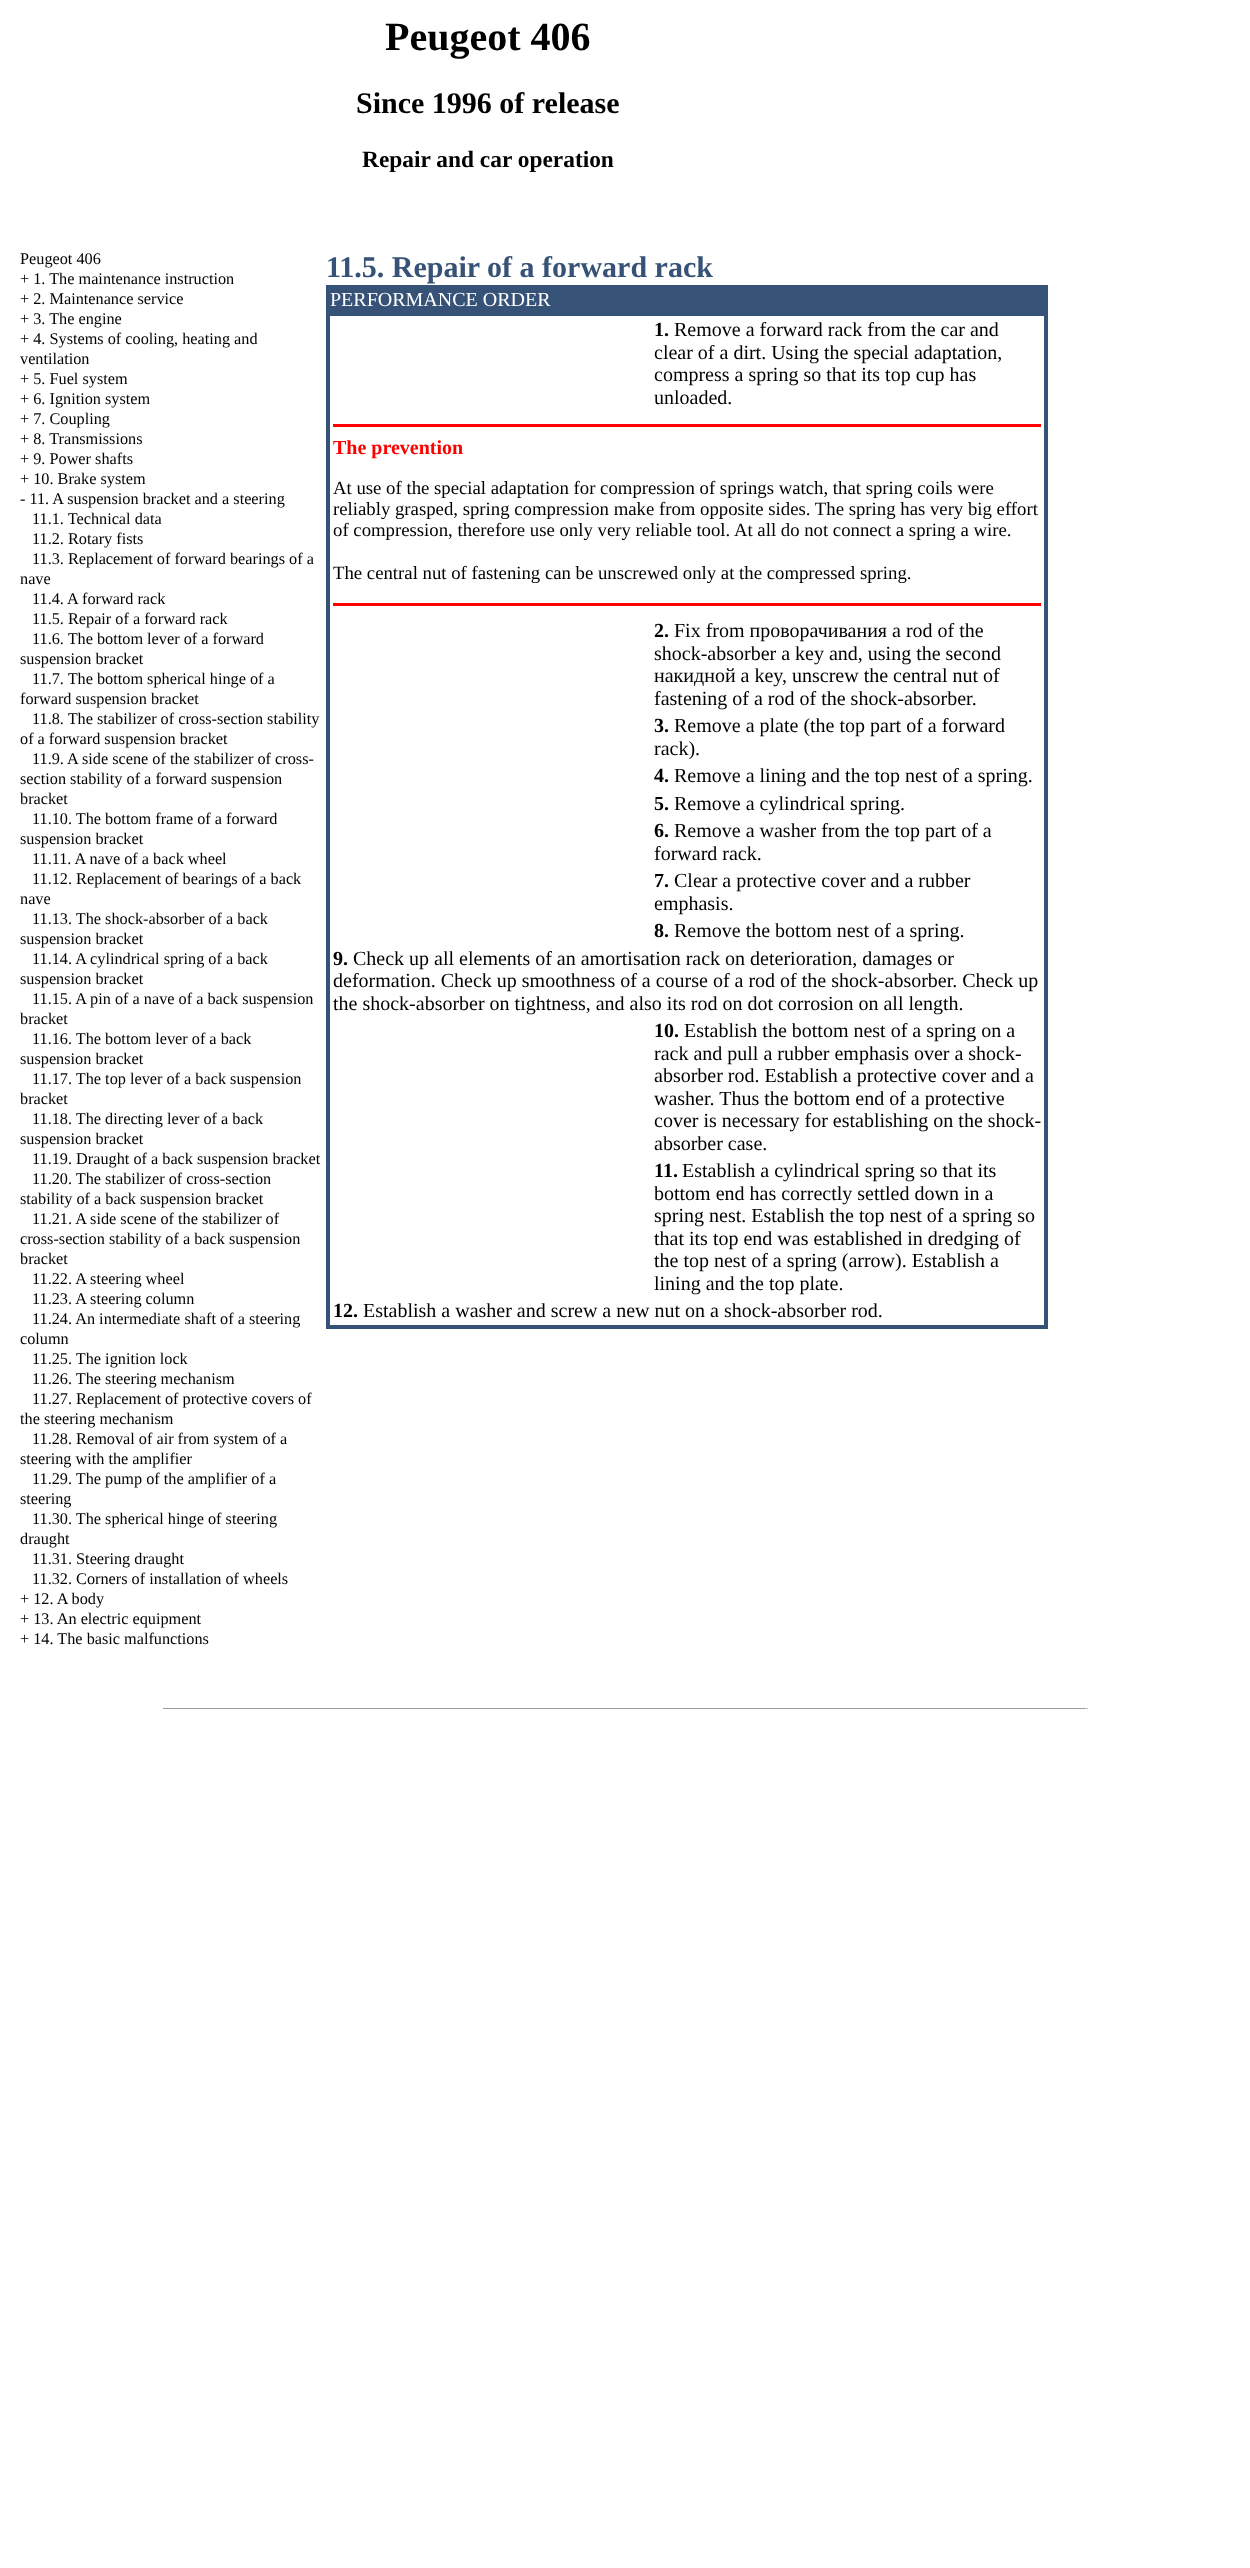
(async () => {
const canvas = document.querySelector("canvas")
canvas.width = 1250
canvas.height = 2568
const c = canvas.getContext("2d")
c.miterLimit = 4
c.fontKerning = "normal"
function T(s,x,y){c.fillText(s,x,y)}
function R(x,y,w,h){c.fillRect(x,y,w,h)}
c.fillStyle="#fff"
R(0,0,1250,2568)
c.font="bold 40px Liberation Serif"
c.fillStyle="#000"
T("Peugeot 406",385,50)
c.font="bold 30px Liberation Serif"
T("Since 1996 of release",356,113)
c.font="bold 23.4px Liberation Serif"
T("Repair and car operation",362,167)
c.font="16.25px Liberation Serif"
T("Peugeot 406",20,264)
T("+ 1. The maintenance instruction",20,284)
T("+ 2. Maintenance service",20,304)
T("+ 3. The engine",20,324)
T("+ 4. Systems of cooling, heating and",20,344)
T("ventilation",20,364)
T("+ 5. Fuel system",20,384)
T("+ 6. Ignition system",20,404)
T("+ 7. Coupling",20,424)
T("+ 8. Transmissions",20,444)
T("+ 9. Power shafts",20,464)
T("+ 10. Brake system",20,484)
T("- 11. A suspension bracket and a steering",20,504)
T("11.1. Technical data",32,524)
T("11.2. Rotary fists",32,544)
T("11.3. Replacement of forward bearings of a",32,564)
T("nave",20,584)
T("11.4. A forward rack",32,604)
T("11.5. Repair of a forward rack",32,624)
T("11.6. The bottom lever of a forward",32,644)
T("suspension bracket",20,664)
T("11.7. The bottom spherical hinge of a",32,684)
T("forward suspension bracket",20,704)
T("11.8. The stabilizer of cross-section stability",32,724)
T("of a forward suspension bracket",20,744)
T("11.9. A side scene of the stabilizer of cross-",32,764)
T("section stability of a forward suspension",20,784)
T("bracket",20,804)
T("11.10. The bottom frame of a forward",32,824)
T("suspension bracket",20,844)
T("11.11. A nave of a back wheel",32,864)
T("11.12. Replacement of bearings of a back",32,884)
T("nave",20,904)
T("11.13. The shock-absorber of a back",32,924)
T("suspension bracket",20,944)
T("11.14. A cylindrical spring of a back",32,964)
T("suspension bracket",20,984)
T("11.15. A pin of a nave of a back suspension",32,1004)
T("bracket",20,1024)
T("11.16. The bottom lever of a back",32,1044)
T("suspension bracket",20,1064)
T("11.17. The top lever of a back suspension",32,1084)
T("bracket",20,1104)
T("11.18. The directing lever of a back",32,1124)
T("suspension bracket",20,1144)
T("11.19. Draught of a back suspension bracket",32,1164)
T("11.20. The stabilizer of cross-section",32,1184)
T("stability of a back suspension bracket",20,1204)
T("11.21. A side scene of the stabilizer of",32,1224)
T("cross-section stability of a back suspension",20,1244)
T("bracket",20,1264)
T("11.22. A steering wheel",32,1284)
T("11.23. A steering column",32,1304)
T("11.24. An intermediate shaft of a steering",32,1324)
T("column",20,1344)
T("11.25. The ignition lock",32,1364)
T("11.26. The steering mechanism",32,1384)
T("11.27. Replacement of protective covers of",32,1404)
T("the steering mechanism",20,1424)
T("11.28. Removal of air from system of a",32,1444)
T("steering with the amplifier",20,1464)
T("11.29. The pump of the amplifier of a",32,1484)
T("steering",20,1504)
T("11.30. The spherical hinge of steering",32,1524)
T("draught",20,1544)
T("11.31. Steering draught",32,1564)
T("11.32. Corners of installation of wheels",32,1584)
T("+ 12. A body",20,1604)
T("+ 13. An electric equipment",20,1624)
T("+ 14. The basic malfunctions",20,1644)
c.font="bold 30px Liberation Serif"
c.fillStyle="#365276"
T("11.5. Repair of a forward rack",326,277)
R(326,285,722,1044)
c.font="20px Liberation Serif"
c.fillStyle="#fff"
T("PERFORMANCE ORDER",330,306)
R(330,316,714,1009)
c.font="bold 20px Liberation Serif"
c.fillStyle="#000"
T("1.",654,336)
c.font="20px Liberation Serif"
T("Remove a forward rack from the car and",674,336)
T("clear of a dirt. Using the special adaptation,",654,359)
T("compress a spring so that its top cup has",654,381)
T("unloaded.",654,404)
c.fillStyle="#f00"
R(333,424,708,3)
c.font="bold 20px Liberation Serif"
T("The prevention",333,454)
c.font="18.75px Liberation Serif"
c.fillStyle="#000"
T("At use of the special adaptation for compression of springs watch, that spring coils were",333,494)
T("reliably grasped, spring compression make from opposite sides. The spring has very big effort",333,515)
T("of compression, therefore use only very reliable tool. At all do not connect a spring a wire.",333,536)
T("The central nut of fastening can be unscrewed only at the compressed spring.",333,579)
c.fillStyle="#f00"
R(333,603,708,3)
c.font="bold 20px Liberation Serif"
c.fillStyle="#000"
T("2.",654,637)
c.font="20px Liberation Serif"
T("Fix from проворачивания a rod of the",674,637)
T("shock-absorber a key and, using the second",654,660)
T("накидной a key, unscrew the central nut of",654,682)
T("fastening of a rod of the shock-absorber.",654,705)
c.font="bold 20px Liberation Serif"
T("3.",654,732)
c.font="20px Liberation Serif"
T("Remove a plate (the top part of a forward",674,732)
T("rack).",654,755)
c.font="bold 20px Liberation Serif"
T("4.",654,782)
c.font="20px Liberation Serif"
T("Remove a lining and the top nest of a spring.",674,782)
c.font="bold 20px Liberation Serif"
T("5.",654,810)
c.font="20px Liberation Serif"
T("Remove a cylindrical spring.",674,810)
c.font="bold 20px Liberation Serif"
T("6.",654,837)
c.font="20px Liberation Serif"
T("Remove a washer from the top part of a",674,837)
T("forward rack.",654,860)
c.font="bold 20px Liberation Serif"
T("7.",654,887)
c.font="20px Liberation Serif"
T("Clear a protective cover and a rubber",674,887)
T("emphasis.",654,910)
c.font="bold 20px Liberation Serif"
T("8.",654,937)
c.font="20px Liberation Serif"
T("Remove the bottom nest of a spring.",674,937)
c.font="bold 20px Liberation Serif"
T("9.",333,965)
c.font="20px Liberation Serif"
T("Check up all elements of an amortisation rack on deterioration, damages or",353,965)
T("deformation. Check up smoothness of a course of a rod of the shock-absorber. Check up",333,987)
T("the shock-absorber on tightness, and also its rod on dot corrosion on all length.",333,1010)
c.font="bold 20px Liberation Serif"
T("10.",654,1037)
c.font="20px Liberation Serif"
T("Establish the bottom nest of a spring on a",684,1037)
T("rack and pull a rubber emphasis over a shock-",654,1060)
T("absorber rod. Establish a protective cover and a",654,1082)
T("washer. Thus the bottom end of a protective",654,1105)
T("cover is necessary for establishing on the shock-",654,1127)
T("absorber case.",654,1150)
c.font="bold 20px Liberation Serif"
T("11.",654,1177)
c.font="20px Liberation Serif"
T("Establish a cylindrical spring so that its",682,1177)
T("bottom end has correctly settled down in a",654,1200)
T("spring nest. Establish the top nest of a spring so",654,1222)
T("that its top end was established in dredging of",654,1245)
T("the top nest of a spring (arrow). Establish a",654,1267)
T("lining and the top plate.",654,1290)
c.font="bold 20px Liberation Serif"
T("12.",333,1317)
c.font="20px Liberation Serif"
T("Establish a washer and screw a new nut on a shock-absorber rod.",363,1317)
c.fillStyle="#9f9f9f"
R(163,1708,925,1)
c.fillStyle="#eee"
R(1086,1708,1,1)
})()
